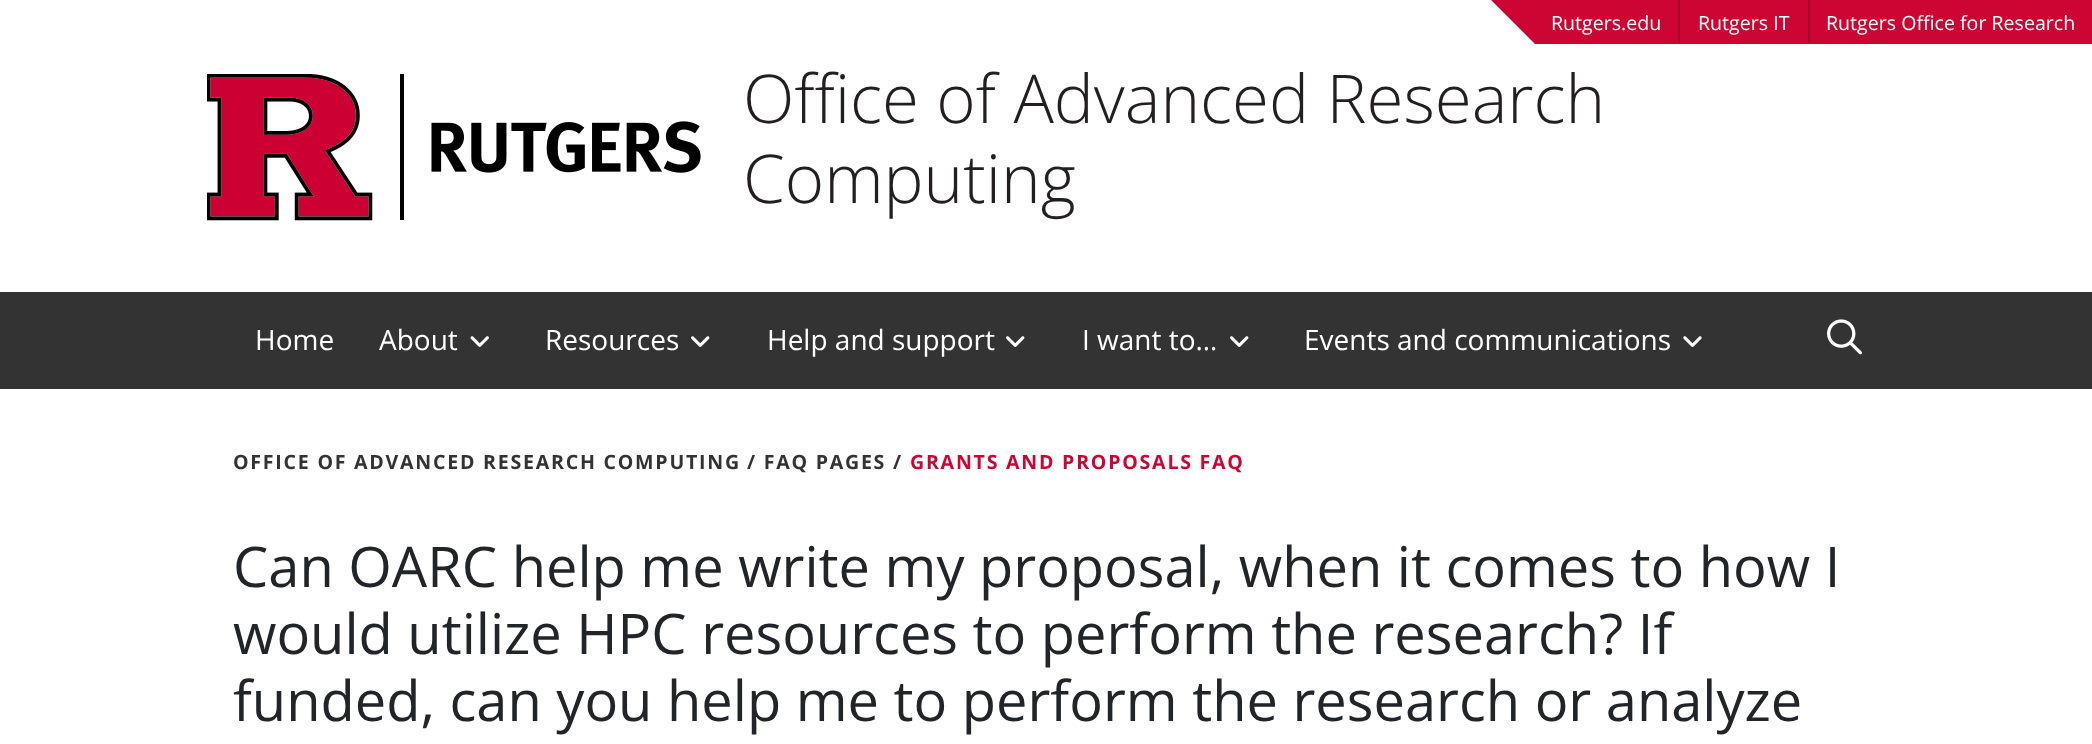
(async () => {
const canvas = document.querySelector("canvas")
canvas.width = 2092
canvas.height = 744
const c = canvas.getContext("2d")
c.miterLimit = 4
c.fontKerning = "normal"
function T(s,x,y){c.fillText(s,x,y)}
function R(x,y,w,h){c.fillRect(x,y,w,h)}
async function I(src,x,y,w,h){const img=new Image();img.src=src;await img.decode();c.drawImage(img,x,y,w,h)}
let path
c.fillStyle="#fff"
R(0,0,2092,744)
c.fillStyle="#cc0533"
path = new Path2D("M1491 0h44v44z")
c.fill(path)
R(1535,0,557,44)
c.fillStyle="#a7052a"
path = new Path2D("M1680 0v44l-2-4v-40z")
c.fill(path)
c.font="19.6px Open Sans"
c.fillStyle="#fff"
T("Rutgers.edu",1551,30)
c.fillStyle="#a7052a"
path = new Path2D("M1810 0v44l-2-4v-40z")
c.fill(path)
c.fillStyle="#fff"
T("Rutgers IT",1698,30)
T("Rutgers Office for Research",1826,30)
await I("1.png",207,74,494,147)
c.font="300 67.25px Open Sans"
c.fillStyle="#231f20"
T("Office of Advanced Research",743,123)
T("Computing",743,203)
c.fillStyle="#333"
R(0,292,2092,97)
c.font="28px Open Sans"
c.fillStyle="#fff"
T("Home",255,350)
T("About",379,350)
await I("2.png",470,336,19,11)
T("Resources",545,350)
await I("3.png",691,336,19,11)
T("Help and support",767,350)
await I("3.png",1006,336,19,11)
T("I want to…",1082,350)
await I("3.png",1230,336,19,11)
T("Events and communications",1304,350)
await I("4.png",1683,336,19,11)
await I("5.png",1827,319,35,36)
c.letterSpacing="1.75px"
c.font="bold 19.6px Open Sans"
c.fillStyle="#333"
T("OFFICE OF ADVANCED RESEARCH COMPUTING",233,469)
T("/ FAQ PAGES /",747,469)
c.fillStyle="#cd0533"
T("GRANTS AND PROPOSALS FAQ",910,469)
c.letterSpacing="0px"
c.font="56px Open Sans"
c.fillStyle="#212529"
T("Can OARC help me write my proposal, when it comes to how I",233,587)
T("would utilize HPC resources to perform the research? If",233,654)
T("funded, can you help me to perform the research or analyze",233,721)
})()
